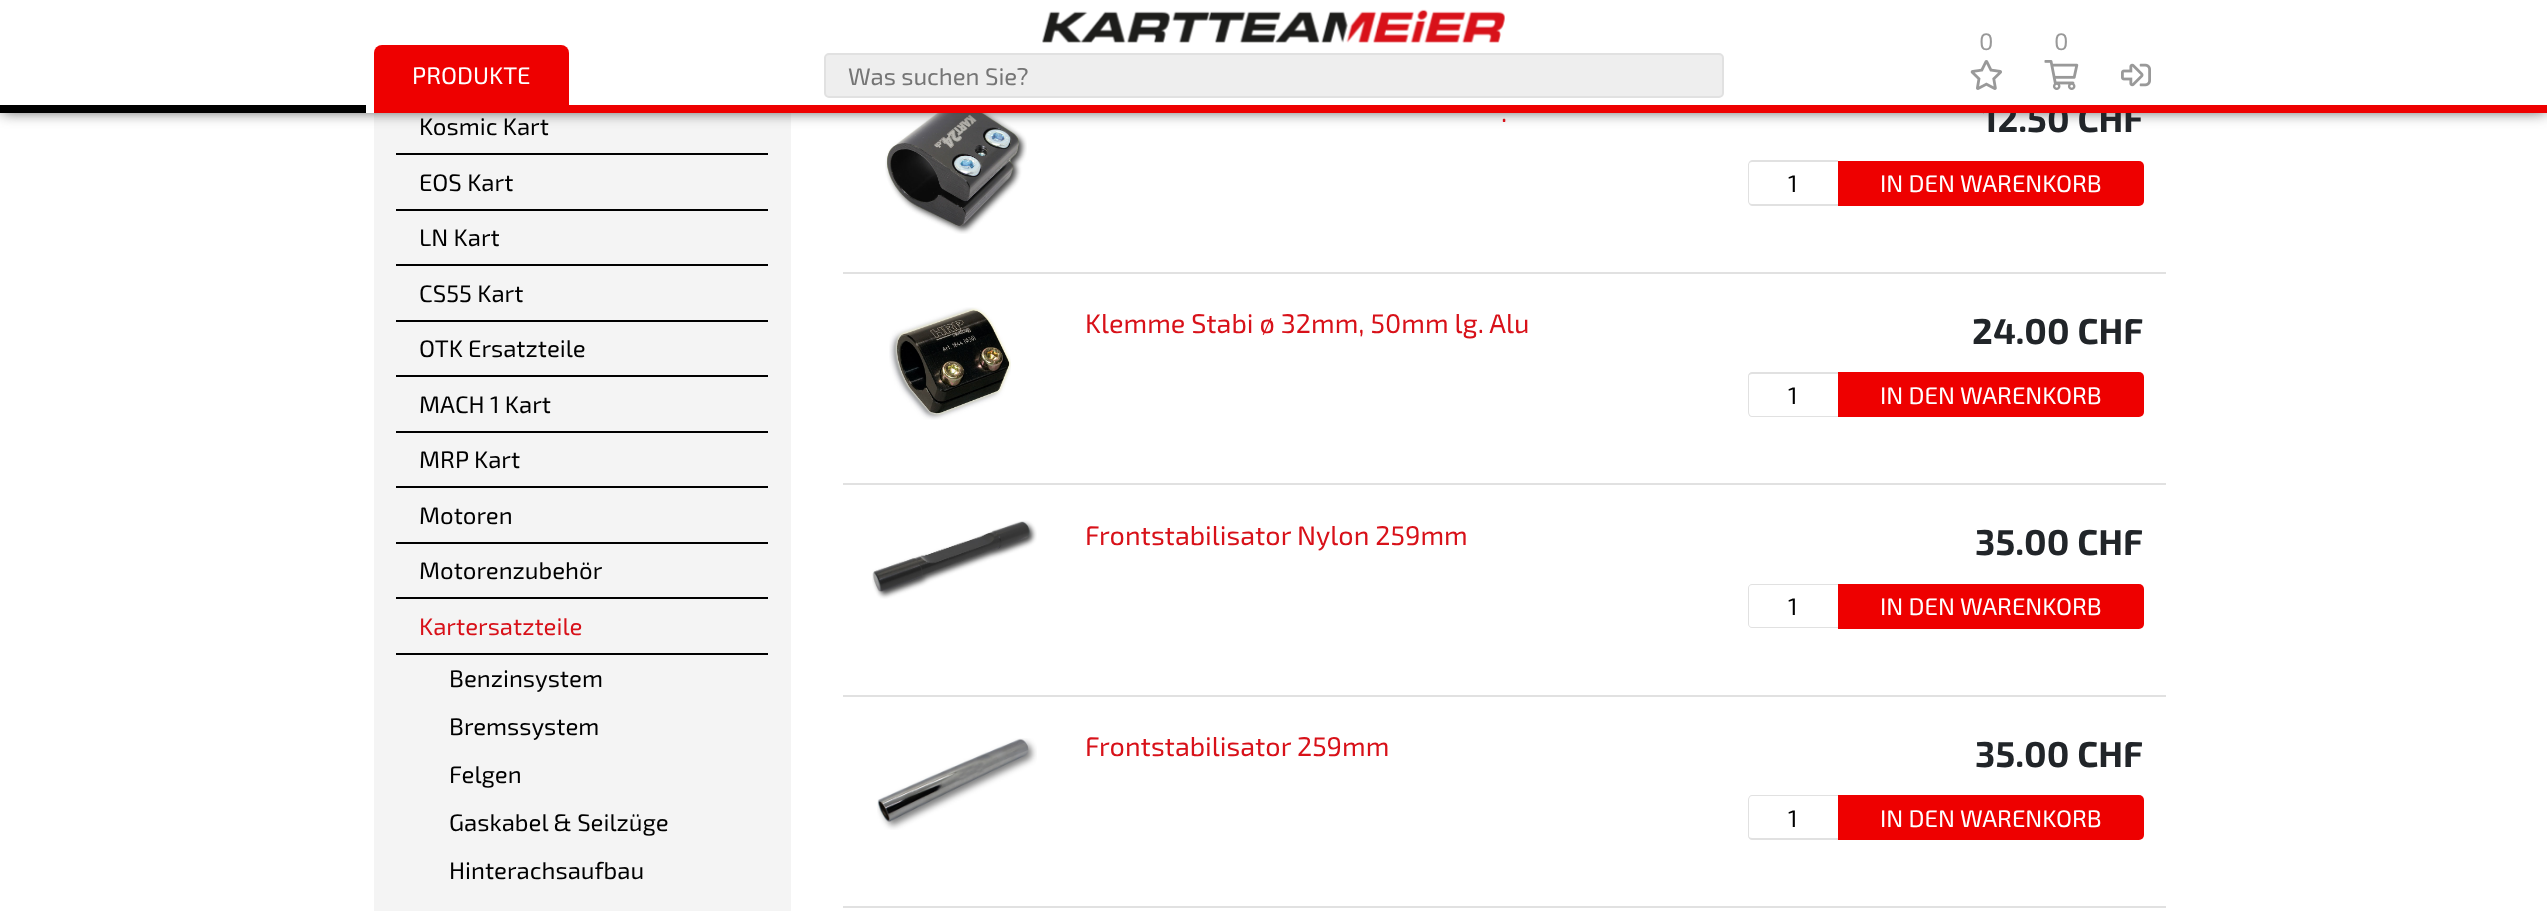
(async () => {
const canvas = document.querySelector("canvas")
canvas.width = 2547
canvas.height = 911
const c = canvas.getContext("2d")
c.miterLimit = 4
c.fontKerning = "normal"
function T(s,x,y){c.fillText(s,x,y)}
function R(x,y,w,h){c.fillRect(x,y,w,h)}
async function I(src,x,y,w,h){const img=new Image();img.src=src;await img.decode();c.drawImage(img,x,y,w,h)}
let path
c.fillStyle="#fff"
R(0,0,2547,911)
c.fillStyle="#f4f4f4"
R(374,113,417,798)
await I("5.png",885,113,142,121)
c.fillStyle="#444"
c.filter="blur(7.5px)"
c.beginPath()
c.rect(2,2,2544,109)
c.fill()
c.filter="none"
c.fillStyle="#fff"
R(0,0,2547,105)
c.fillStyle="#000"
R(0,105,366,8)
await I("1.png",1042,9,463,34)
c.font="24px 'Exo 2'"
c.fillStyle="#999"
T("0",1979,50)
await I("2.png",1970,60,32,30)
T("0",2054,50)
await I("3.png",2044,60,35,30)
await I("4.png",2121,63,30,24)
c.fillStyle="#e00"
c.beginPath()
c.roundRect(374,45,195,60,[8,8,0,0])
c.fill()
c.fillStyle="#fff"
T("PRODUKTE",412,84)
c.fillStyle="#eee"
c.beginPath()
c.roundRect(825,54,898,43,4)
c.fill()
c.strokeStyle="#e1e1e1"
c.lineWidth=2
c.stroke()
c.fillStyle="#757575"
T("Was suchen Sie?",848,85)
c.font="bold 36px 'Exo 2'"
c.fillStyle="#212529"
T("12.50 CHF",1982,132)
c.fillStyle="#e00"
R(366,105,2181,8)
c.fillStyle="#fff"
R(366,105,8,8)
c.fillStyle="#000"
R(396,153,372,2)
c.font="24px 'Exo 2'"
T("Kosmic Kart",419,135)
R(396,209,372,2)
T("EOS Kart",419,191)
R(396,264,372,2)
T("LN Kart",419,246)
R(396,320,372,2)
T("CS55 Kart",419,302)
R(396,375,372,2)
T("OTK Ersatzteile",419,357)
R(396,431,372,2)
T("MACH 1 Kart",419,413)
R(396,486,372,2)
T("MRP Kart",419,468)
R(396,542,372,2)
T("Motoren",419,524)
R(396,597,372,2)
T("Motorenzubehör",419,579)
R(396,653,372,2)
c.fillStyle="#d81119"
T("Kartersatzteile",419,635)
c.fillStyle="#000"
T("Benzinsystem",449,687)
T("Bremssystem",449,735)
T("Felgen",449,783)
T("Gaskabel & Seilzüge",449,831)
T("Hinterachsaufbau",449,879)
c.fillStyle="#e1e1e1"
R(843,272,1323,2)
c.font="27px 'Exo 2'"
c.fillStyle="#d81119"
T(".",1501,122)
c.fillStyle="#e1e1e1"
path = new Path2D("M1752 160h86v46h-86c-2 0-4-3-4-5v-36c0-2 2-5 4-5zm0 2h86v42h-86c-2 0-3-1-3-3v-36c0-2 1-3 3-3z")
c.fill(path,"evenodd")
c.font="24px 'Exo 2'"
c.fillStyle="#000"
T("1",1788,192)
c.fillStyle="#e00"
c.beginPath()
c.roundRect(1838,161,306,45,[0,5,5,0])
c.fill()
c.fillStyle="#fff"
T("IN DEN WARENKORB",1880,192)
c.fillStyle="#e1e1e1"
R(843,483,1323,2)
await I("6.png",889,307,122,113)
c.font="27px 'Exo 2'"
c.fillStyle="#d81119"
T("Klemme Stabi ø 32mm, 50mm lg. Alu",1085,333)
c.font="bold 36px 'Exo 2'"
c.fillStyle="#212529"
T("24.00 CHF",1972,344)
c.fillStyle="#e1e1e1"
path = new Path2D("M1752 372h86v45h-86c-2 0-4-2-4-5v-36c0-2 2-4 4-4zm0 2h86v42h-86c-2 0-3-2-3-4v-36c0-1 1-2 3-2z")
c.fill(path,"evenodd")
c.font="24px 'Exo 2'"
c.fillStyle="#000"
T("1",1788,404)
c.fillStyle="#e00"
c.beginPath()
c.roundRect(1838,372,306,45,[0,5,5,0])
c.fill()
c.fillStyle="#fff"
T("IN DEN WARENKORB",1880,404)
c.fillStyle="#e1e1e1"
R(843,695,1323,2)
await I("7.png",872,520,165,79)
c.font="27px 'Exo 2'"
c.fillStyle="#d81119"
T("Frontstabilisator Nylon 259mm",1085,545)
c.font="bold 36px 'Exo 2'"
c.fillStyle="#212529"
T("35.00 CHF",1975,555)
c.fillStyle="#e1e1e1"
path = new Path2D("M1752 584h86v44h-86c-2 0-4-2-4-4v-36c0-2 2-4 4-4zm0 1h86v42h-86c-2 0-3-1-3-3v-36c0-2 1-3 3-3z")
c.fill(path,"evenodd")
c.font="24px 'Exo 2'"
c.fillStyle="#000"
T("1",1788,615)
c.fillStyle="#e00"
c.beginPath()
c.roundRect(1838,584,306,45,[0,5,5,0])
c.fill()
c.fillStyle="#fff"
T("IN DEN WARENKORB",1880,615)
c.fillStyle="#e1e1e1"
R(843,906,1323,2)
await I("8.png",877,738,160,92)
c.font="27px 'Exo 2'"
c.fillStyle="#d81119"
T("Frontstabilisator 259mm",1085,756)
c.font="bold 36px 'Exo 2'"
c.fillStyle="#212529"
T("35.00 CHF",1975,767)
c.fillStyle="#e1e1e1"
path = new Path2D("M1752 795h86v45h-86c-2 0-4-2-4-4v-36c0-3 2-5 4-5zm0 1h86v42h-86c-2 0-3-1-3-2v-36c0-2 1-4 3-4z")
c.fill(path,"evenodd")
c.font="24px 'Exo 2'"
c.fillStyle="#000"
T("1",1788,827)
c.fillStyle="#e00"
c.beginPath()
c.roundRect(1838,795,306,45,[0,5,5,0])
c.fill()
c.fillStyle="#fff"
T("IN DEN WARENKORB",1880,827)
})()
